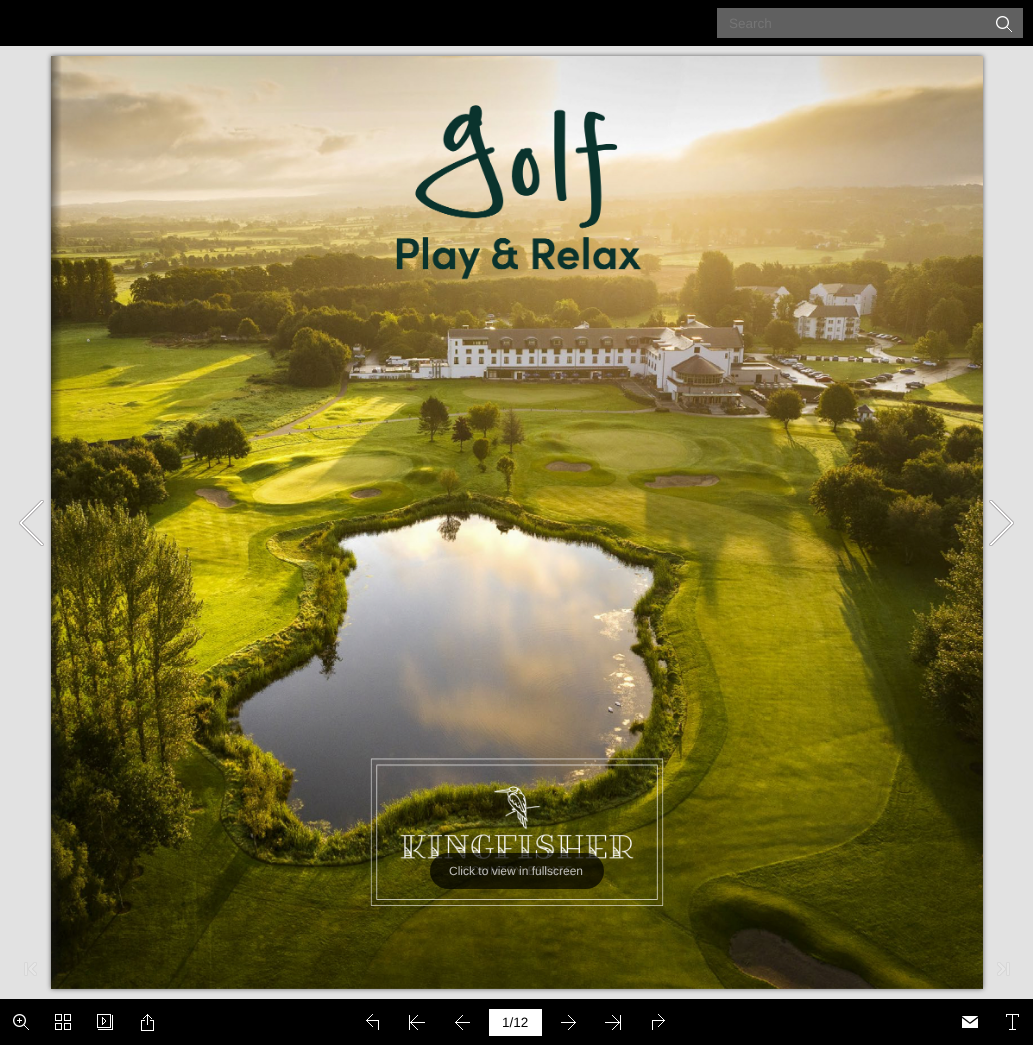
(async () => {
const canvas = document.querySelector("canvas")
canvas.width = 1033
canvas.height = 1045
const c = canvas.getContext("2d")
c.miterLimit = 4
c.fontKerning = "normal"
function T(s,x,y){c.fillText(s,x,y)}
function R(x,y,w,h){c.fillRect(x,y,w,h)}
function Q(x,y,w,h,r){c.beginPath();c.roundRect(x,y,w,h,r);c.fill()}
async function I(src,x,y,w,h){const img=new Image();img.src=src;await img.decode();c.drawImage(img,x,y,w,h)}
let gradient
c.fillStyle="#e2e2e2"
R(0,0,1033,1045)
c.fillStyle="#000"
R(0,0,1033,46)
c.fillStyle="#606060"
R(717,8,306,30)
c.font="13.5px Liberation Sans"
c.fillStyle="#757575"
T("Search",729,28)
await I("1.png",996,16,16,16)
c.fillStyle="#282828b3"
c.filter="blur(2.5px)"
c.beginPath()
c.rect(51,56,932,933)
c.fill()
c.filter="none"
await I("2.png",19,500,25,46)
await I("3.png",989,500,25,46)
await I("5.png",51,988,932,1)
await I("6.png",51,988,47,1)
await I("7.png",51,988,932,1)
await I("4.png",51,56,932,933)
gradient = c.createLinearGradient(51,523,62,523)
gradient.addColorStop(0,"#14141480")
gradient.addColorStop(1,"#14141400")
c.fillStyle = gradient
R(51,56,11,933)
c.fillStyle="#000000b3"
Q(430,853,174,36,18)
c.font="12px Liberation Sans"
c.fillStyle="#bcbbb6"
T("Click to view in fullscreen",449,875)
await I("8.png",24,962,13,14)
await I("9.png",997,962,13,14)
c.fillStyle="#000"
R(0,999,1033,46)
await I("10.png",13,1014,16,16)
await I("11.png",55,1014,16,16)
await I("12.png",97,1014,16,16)
await I("13.png",141,1014,13,17)
await I("14.png",366,1014,13,16)
await I("15.png",409,1015,16,15)
await I("16.png",455,1015,15,15)
c.fillStyle="#fff"
R(489,1009,53,27)
c.font="13.5px Liberation Sans"
c.fillStyle="#000"
T("1/12",502,1027)
await I("17.png",561,1015,15,15)
await I("18.png",605,1015,16,15)
await I("19.png",652,1014,13,16)
await I("20.png",962,1016,16,12)
await I("21.png",1006,1014,13,16)
})()
